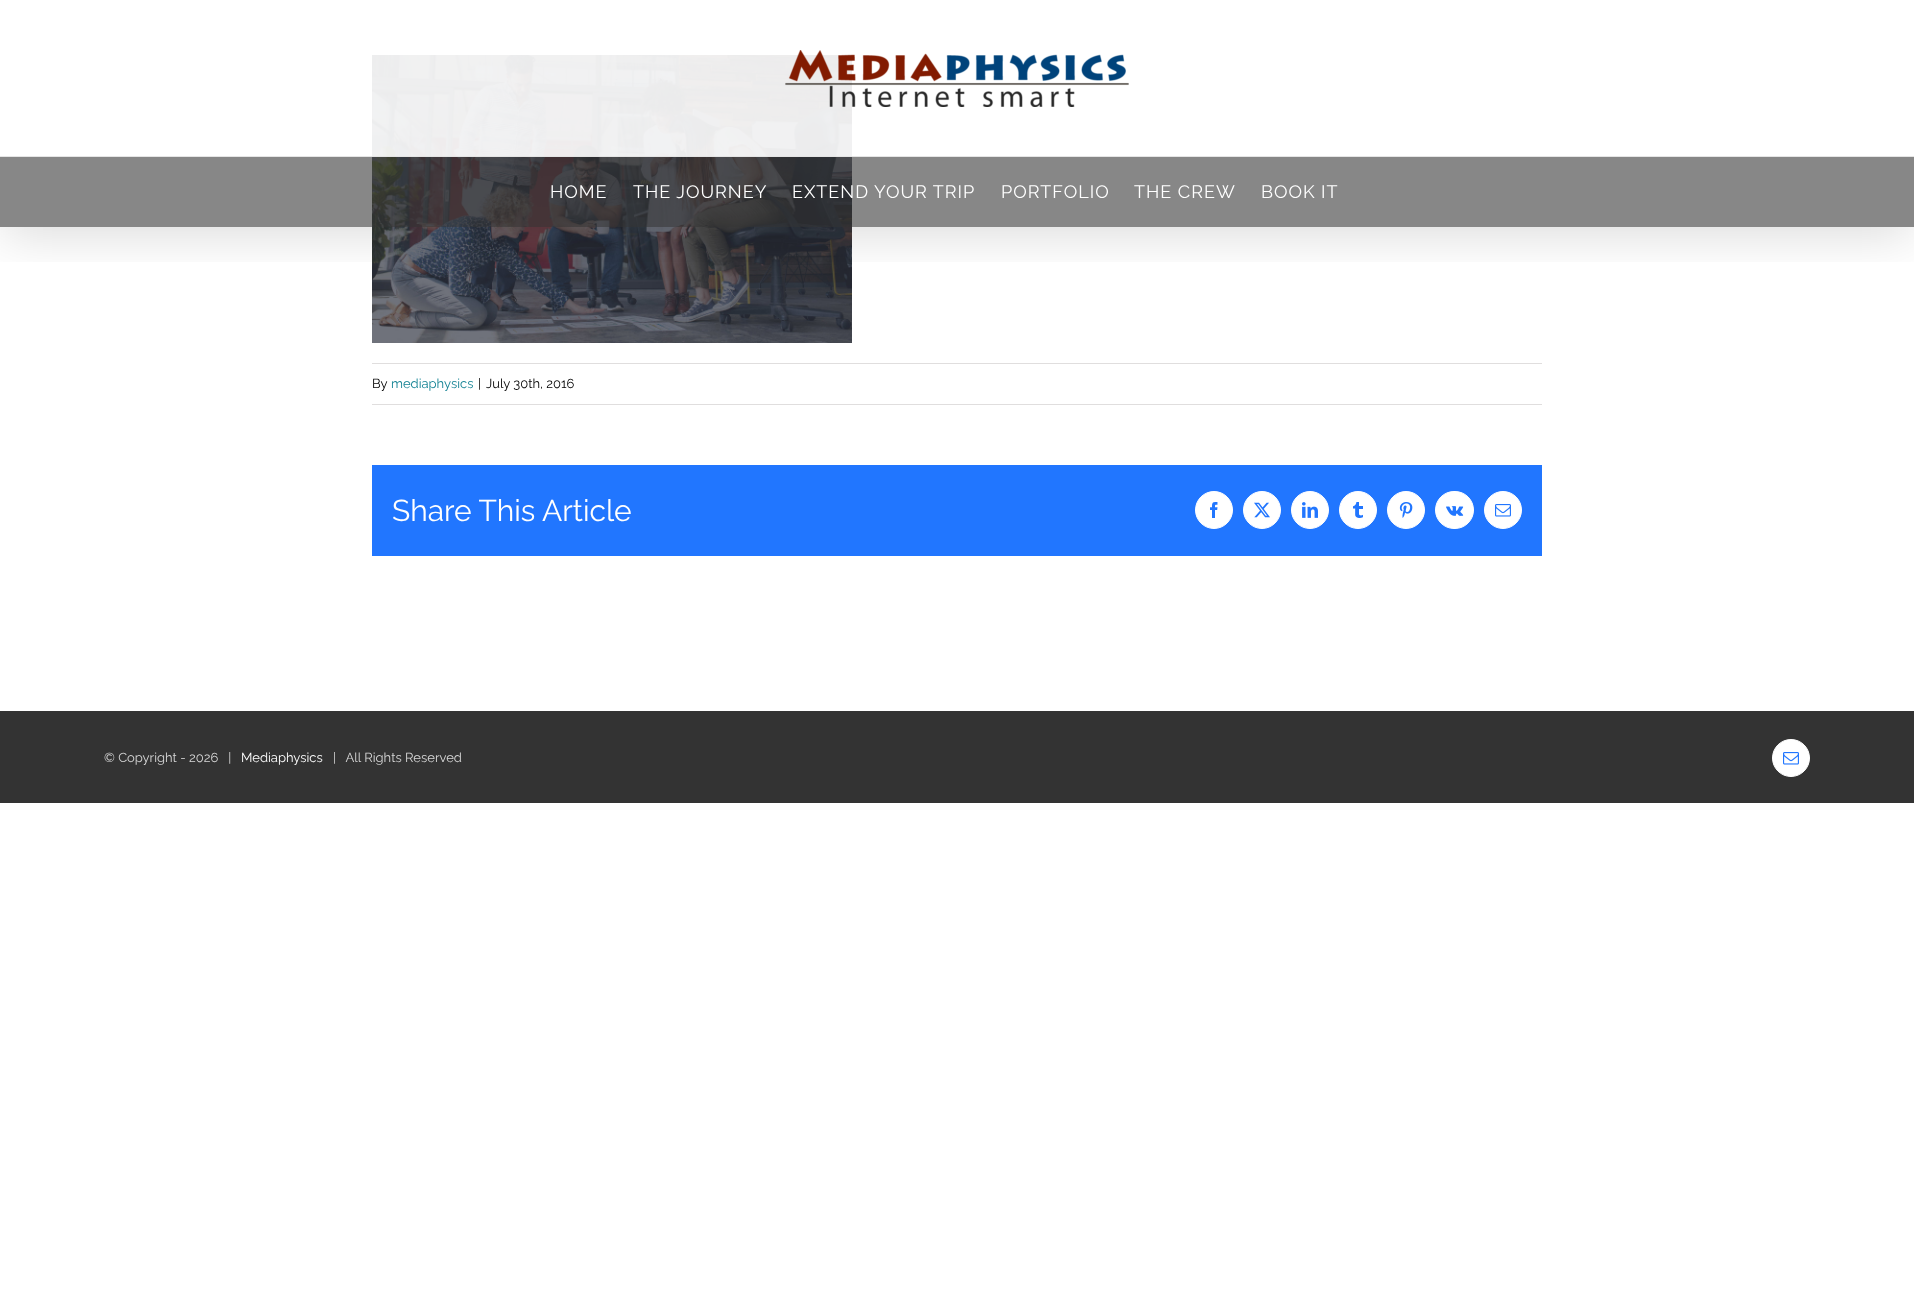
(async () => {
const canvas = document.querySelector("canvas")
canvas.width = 1914
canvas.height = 1313
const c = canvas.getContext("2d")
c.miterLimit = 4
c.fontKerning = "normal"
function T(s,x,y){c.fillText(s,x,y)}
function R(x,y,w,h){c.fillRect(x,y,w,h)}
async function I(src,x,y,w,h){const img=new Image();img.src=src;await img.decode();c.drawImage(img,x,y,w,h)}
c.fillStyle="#fff"
R(0,0,1914,1313)
await I("2.png",372,55,480,288)
c.save()
c.beginPath()
c.rect(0,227,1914,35)
c.clip()
c.fillStyle="#00000024"
c.filter="blur(25px)"
c.beginPath()
c.rect(2,12,1910,223)
c.fill()
c.filter="none"
c.restore()
c.fillStyle="#ffffffe8"
R(372,55,480,101)
c.fillStyle="#e5e5e5"
R(0,156,1914,1)
await I("1.png",785,50,344,57)
c.fillStyle="#30303094"
R(0,157,1914,70)
c.letterSpacing="1px"
c.font="18px Raleway"
c.fillStyle="#fff"
T("HOME",550,198)
T("THE JOURNEY",633,198)
T("EXTEND YOUR TRIP",792,198)
T("PORTFOLIO",1001,198)
T("THE CREW",1134,198)
T("BOOK IT",1261,198)
c.fillStyle="#e0dede"
R(372,363,1170,1)
R(372,404,1170,1)
c.letterSpacing="0px"
c.font="13px Raleway"
c.fillStyle="#000"
T("By",372,388)
c.fillStyle="#138293"
T("mediaphysics",391,388)
c.fillStyle="#000"
T("|",478,388)
T("July 30th, 2016",486,388)
c.fillStyle="#2176ff"
R(372,465,1170,91)
c.font="30px Raleway"
c.fillStyle="#fff"
T("Share This Article",392,521)
c.beginPath()
c.arc(1214,510,18.5,0,7)
c.fill()
c.strokeStyle="#fff"
c.stroke()
await I("3.png",1210,502,8,16)
c.beginPath()
c.arc(1262,510,18.5,0,7)
c.fill()
c.stroke()
await I("4.png",1254,502,16,16)
c.beginPath()
c.arc(1310,510,18.5,0,7)
c.fill()
c.stroke()
await I("5.png",1302,502,16,16)
c.beginPath()
c.arc(1358,510,18.5,0,7)
c.fill()
c.stroke()
await I("6.png",1353,502,10,16)
c.beginPath()
c.arc(1406,510,18.5,0,7)
c.fill()
c.stroke()
await I("7.png",1399,502,14,16)
c.beginPath()
c.roundRect(1435.5,491.5,38,37,18.5)
c.fill()
c.stroke()
await I("8.png",1446,506,18,10)
c.beginPath()
c.arc(1503,510,18.5,0,7)
c.fill()
c.stroke()
await I("9.png",1495,504,16,13)
c.fillStyle="#333"
R(0,711,1914,92)
c.font="13px Raleway"
c.fillStyle="#d8d8d8"
T("© Copyright - 2026   |",104,762)
c.fillStyle="#fff"
T("Mediaphysics",241,762)
c.fillStyle="#d8d8d8"
T("|   All Rights Reserved",333,762)
c.fillStyle="#fff"
c.beginPath()
c.arc(1791,758,18.5,0,7)
c.fill()
c.stroke()
await I("9.png",1783,752,16,13)
})()
